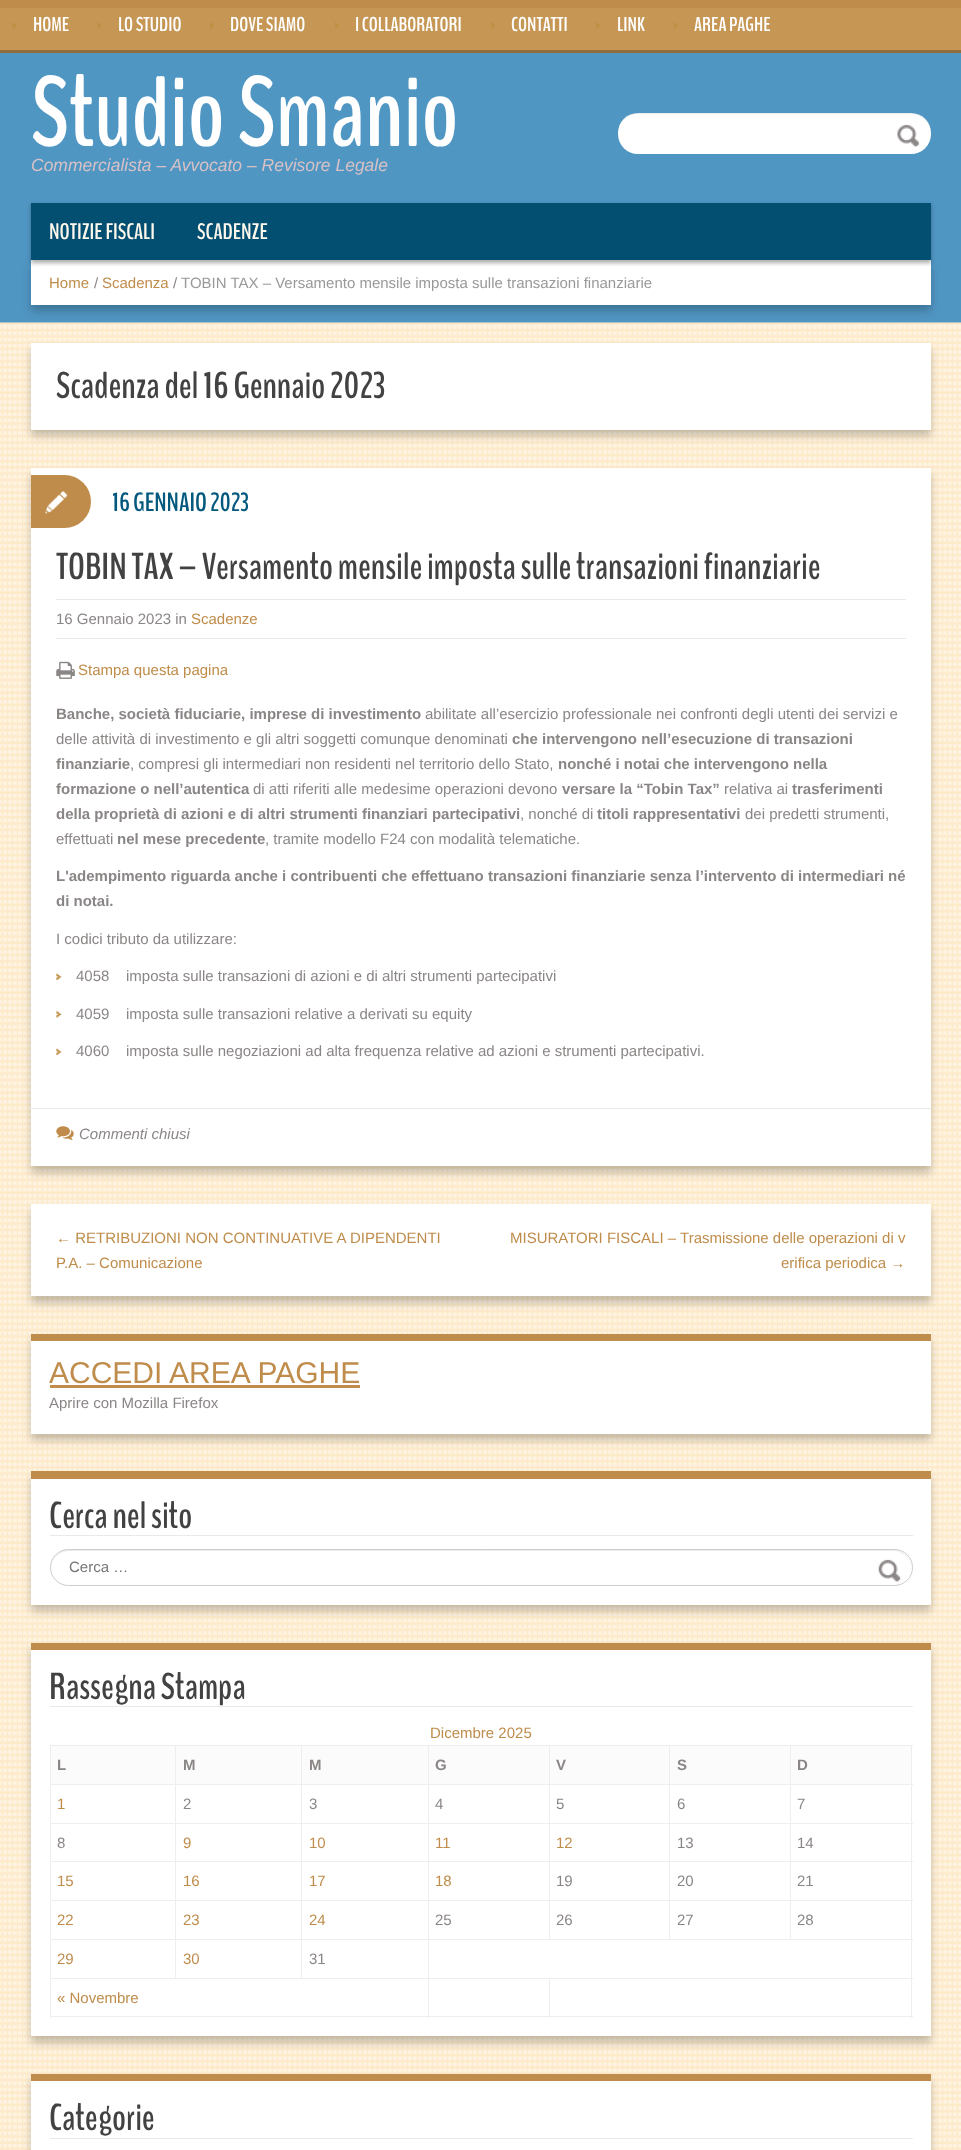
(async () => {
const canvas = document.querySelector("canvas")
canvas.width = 961
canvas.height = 2150
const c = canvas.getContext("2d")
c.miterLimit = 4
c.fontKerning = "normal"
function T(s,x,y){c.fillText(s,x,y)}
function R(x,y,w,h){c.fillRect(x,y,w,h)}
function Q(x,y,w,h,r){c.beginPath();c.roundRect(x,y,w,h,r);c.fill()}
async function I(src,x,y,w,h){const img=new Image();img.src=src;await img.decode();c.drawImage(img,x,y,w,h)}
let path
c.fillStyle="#fff"
R(0,0,961,2150)
await I("1.png",0,53,961,2097)
c.fillStyle="#bf8c4b"
R(0,0,961,8)
c.fillStyle="#c69655"
R(0,8,961,42)
c.fillStyle="#916d3d"
R(0,50,961,3)
await I("2.png",12,22,5,7)
c.font="bold 20px BenchNine"
c.fillStyle="#fff"
T("HOME",33,31)
await I("2.png",97,22,5,7)
T("LO STUDIO",118,31)
await I("3.png",210,22,4,7)
T("DOVE SIAMO",230,31)
await I("3.png",335,22,4,7)
T("I COLLABORATORI",355,31)
await I("4.png",491,22,4,7)
T("CONTATTI",511,31)
await I("4.png",596,22,4,7)
T("LINK",617,31)
await I("5.png",673,22,5,7)
T("AREA PAGHE",694,31)
c.font="bold 100px BenchNine"
T("Studio Smanio",31,146)
c.font="italic 17.5px Liberation Sans"
c.fillStyle="#d7c1c6"
T("Commercialista – Avvocato – Revisore Legale",31,171)
c.fillStyle="#fff"
Q(618,113,313,41,20)
c.fillStyle="#00000012"
path = new Path2D("M638 114h273c11 0 20 9 20 20v-1c0-11-9-20-20-20h-273c-11 0-20 9-20 20v1c0-11 8-20 20-20z")
c.fill(path)
await I("6.png",897,124,23,23)
c.fillStyle="#00000038"
c.filter="blur(4.5px)"
c.beginPath()
c.rect(31,266,900,45)
c.fill()
c.filter="none"
c.fillStyle="#fff"
R(31,260,900,45)
c.fillStyle="#00000054"
c.filter="blur(2px)"
c.beginPath()
c.rect(31,205,900,58)
c.fill()
c.filter="none"
c.fillStyle="#034f72"
R(31,203,900,57)
c.font="bold 22.5px BenchNine"
c.fillStyle="#fff8ed"
T("NOTIZIE FISCALI",49,239)
T("SCADENZE",197,239)
c.font="15px Liberation Sans"
c.fillStyle="#bf8c4b"
T("Home",49,288)
c.fillStyle="#8b8686"
T("/",94,288)
c.fillStyle="#bf8c4b"
T("Scadenza",102,288)
c.fillStyle="#8b8686"
T("/",173,288)
c.fillStyle="#999"
T("TOBIN TAX – Versamento mensile imposta sulle transazioni finanziarie",181,288)
c.fillStyle="#00000038"
c.filter="blur(4.5px)"
c.beginPath()
c.rect(31,349,900,87)
c.fill()
c.filter="none"
c.fillStyle="#fff"
R(31,343,900,87)
c.font="bold 37.5px BenchNine"
c.fillStyle="#434242"
T("Scadenza del 16 Gennaio 2023",56,398)
c.fillStyle="#00000038"
c.filter="blur(4.5px)"
c.beginPath()
c.rect(31,474,900,699)
c.fill()
c.filter="none"
c.fillStyle="#fff"
R(31,468,900,698)
c.fillStyle="#bf8c4b"
c.beginPath()
c.roundRect(31,475,60,53,[0,26.5,26.5,0])
c.fill()
await I("7.png",45,490,23,24)
c.font="bold 26.25px BenchNine"
c.fillStyle="#02587d"
T("16 GENNAIO 2023",112,511)
c.font="bold 37.5px BenchNine"
c.fillStyle="#434242"
T("TOBIN TAX – Versamento mensile imposta sulle transazioni finanziarie",56,579)
c.fillStyle="#ebeae7"
R(56,599,850,1)
R(56,638,850,1)
c.font="15px Liberation Sans"
c.fillStyle="#8b8686"
T("16 Gennaio 2023 in",56,624)
c.fillStyle="#bf8c4b"
T("Scadenze",191,624)
await I("8.png",56,661,19,18)
T("Stampa questa pagina",78,675)
c.font="bold 15px Liberation Sans"
c.fillStyle="#8b8686"
T("Banche, società fiduciarie, imprese di investimento",56,719)
c.font="15px Liberation Sans"
T("abilitate all’esercizio professionale nei confronti degli utenti dei servizi e",425,719)
T("delle attività di investimento e gli altri soggetti comunque denominati",56,744)
c.font="bold 15px Liberation Sans"
T("che intervengono nell’esecuzione di transazioni",512,744)
T("finanziarie",56,769)
c.font="15px Liberation Sans"
T(", compresi gli intermediari non residenti nel territorio dello Stato,",130,769)
c.font="bold 15px Liberation Sans"
T("nonché i notai che intervengono nella",558,769)
T("formazione o nell’autentica",56,794)
c.font="15px Liberation Sans"
T("di atti riferiti alle medesime operazioni devono",253,794)
c.font="bold 15px Liberation Sans"
T("versare la “Tobin Tax”",562,794)
c.font="15px Liberation Sans"
T("relativa ai",724,794)
c.font="bold 15px Liberation Sans"
T("trasferimenti",792,794)
T("della proprietà di azioni e di altri strumenti finanziari partecipativi",56,819)
c.font="15px Liberation Sans"
T(", nonché di",520,819)
c.font="bold 15px Liberation Sans"
T("titoli rappresentativi",597,819)
c.font="15px Liberation Sans"
T("dei predetti strumenti,",745,819)
T("effettuati",56,844)
c.font="bold 15px Liberation Sans"
T("nel mese precedente",117,844)
c.font="15px Liberation Sans"
T(", tramite modello F24 con modalità telematiche.",265,844)
c.font="bold 15px Liberation Sans"
T("L'adempimento riguarda anche i contribuenti che effettuano transazioni finanziarie senza l’intervento di intermediari né",56,881)
T("di notai.",56,906)
c.font="15px Liberation Sans"
T("I codici tributo da utilizzare:",56,944)
await I("9.png",56,973,6,7)
T("4058    imposta sulle transazioni di azioni e di altri strumenti partecipativi",76,981)
await I("10.png",56,1011,6,7)
T("4059    imposta sulle transazioni relative a derivati su equity",76,1019)
await I("9.png",56,1048,6,7)
T("4060    imposta sulle negoziazioni ad alta frequenza relative ad azioni e strumenti partecipativi.",76,1056)
c.fillStyle="#ebeae7"
R(31,1108,900,1)
await I("11.png",56,1126,18,14)
c.font="italic 15px Liberation Sans"
c.fillStyle="#8b8686"
T("Commenti chiusi",79,1139)
c.fillStyle="#00000038"
c.filter="blur(4.5px)"
c.beginPath()
c.rect(31,1210,900,93)
c.fill()
c.filter="none"
c.fillStyle="#fff"
R(31,1204,900,92)
c.font="15px Liberation Sans"
c.fillStyle="#bf8c4b"
T("← RETRIBUZIONI NON CONTINUATIVE A DIPENDENTI",56,1243)
T("P.A. – Comunicazione",56,1268)
T("MISURATORI FISCALI – Trasmissione delle operazioni di v",510,1243)
T("erifica periodica →",781,1268)
c.fillStyle="#00000038"
c.filter="blur(4.5px)"
c.beginPath()
c.rect(31,1340,900,100)
c.fill()
c.filter="none"
c.fillStyle="#fff"
R(31,1341,900,93)
c.fillStyle="#bf8c4b"
R(31,1334,900,7)
c.font="30px Liberation Sans"
T("ACCEDI AREA PAGHE",49,1383)
R(50,1385,310,3)
c.font="15px Liberation Sans"
c.fillStyle="#8b8686"
T("Aprire con Mozilla Firefox",49,1408)
c.fillStyle="#00000038"
c.filter="blur(4.5px)"
c.beginPath()
c.rect(31,1478,900,133)
c.fill()
c.filter="none"
c.fillStyle="#fff"
R(31,1479,900,126)
c.fillStyle="#bf8c4b"
R(31,1471,900,8)
c.fillStyle="#ebeae7"
R(50,1535,863,1)
c.font="bold 37.5px BenchNine"
c.fillStyle="#434242"
T("Cerca nel sito",49,1528)
c.fillStyle="#ececec"
path = new Path2D("M69 1551h825c9 0 17 8 17 17c0-10-8-18-17-18h-826c-9 0-17 8-17 18c0-9 8-17 18-17z")
c.fill(path)
c.beginPath()
c.roundRect(50.5,1549.5,862,36,18)
c.strokeStyle="#ccc"
c.stroke()
c.font="15px Liberation Sans"
c.fillStyle="#757575"
T("Cerca …",69,1572)
await I("12.png",878,1559,23,23)
c.fillStyle="#00000038"
c.filter="blur(4.5px)"
c.beginPath()
c.rect(31,1649,900,394)
c.fill()
c.filter="none"
c.fillStyle="#fff"
R(31,1650,900,386)
c.fillStyle="#bf8c4b"
R(31,1643,900,7)
c.fillStyle="#ebeae7"
R(50,1706,863,1)
c.font="bold 37.5px BenchNine"
c.fillStyle="#434242"
T("Rassegna Stampa",49,1699)
c.font="15px Liberation Sans"
c.fillStyle="#bf8c4b"
T("Dicembre 2025",430,1738)
c.fillStyle="#fbfbfb"
R(51,1746,124,38)
c.fillStyle="#eee"
R(790,1745,123,1)
R(790,1784,123,1)
R(790,1823,123,1)
R(790,1861,123,1)
R(790,1900,123,1)
R(428,1939,485,1)
R(790,1900,1,40)
R(669,1900,122,1)
R(790,1861,1,40)
R(669,1861,122,1)
R(790,1823,1,40)
R(669,1823,122,1)
R(790,1784,1,40)
R(669,1784,122,1)
R(790,1745,1,40)
R(669,1745,122,1)
R(669,1900,1,40)
R(549,1900,121,1)
R(669,1861,1,40)
R(549,1861,121,1)
R(669,1823,1,40)
R(549,1823,121,1)
R(669,1784,1,40)
R(549,1784,121,1)
R(669,1745,1,40)
R(549,1745,121,1)
R(549,1900,1,40)
R(428,1900,122,1)
R(549,1861,1,40)
R(428,1861,122,1)
R(549,1823,1,40)
R(428,1823,122,1)
R(549,1784,1,40)
R(428,1784,122,1)
R(549,1745,1,40)
R(428,1745,122,1)
R(911,1939,1,40)
R(428,1978,485,1)
R(428,1939,1,40)
R(301,1939,128,1)
R(428,1900,1,40)
R(301,1900,128,1)
R(428,1861,1,40)
R(301,1861,128,1)
R(428,1823,1,40)
R(301,1823,128,1)
R(428,1784,1,40)
R(301,1784,128,1)
R(428,1745,1,40)
R(301,1745,128,1)
c.fillStyle="#fbfbfb"
R(176,1746,252,38)
c.fillStyle="#eee"
R(301,1978,128,1)
R(301,1939,1,40)
R(175,1939,128,1)
R(301,1900,1,40)
R(175,1900,128,1)
R(301,1861,1,40)
R(175,1861,128,1)
R(301,1823,1,40)
R(175,1823,128,1)
R(301,1784,1,40)
R(175,1784,128,1)
R(301,1745,1,40)
R(175,1745,128,1)
R(175,1978,128,1)
R(175,1939,1,40)
R(50,1939,126,1)
R(175,1900,1,40)
R(50,1900,126,1)
R(175,1861,1,40)
R(50,1861,126,1)
R(175,1823,1,40)
R(50,1823,126,1)
R(175,1784,1,40)
R(50,1784,126,1)
R(175,1745,1,40)
R(50,1745,126,1)
R(50,1978,126,1)
R(50,1939,1,40)
R(50,1900,1,40)
R(50,1861,1,40)
R(50,1823,1,40)
R(50,1784,1,40)
R(50,1745,1,40)
c.font="bold 15px Liberation Sans"
c.fillStyle="#8b8686"
T("L",57,1770)
T("M",183,1770)
T("M",309,1770)
c.fillStyle="#fbfbfb"
R(429,1746,120,38)
c.fillStyle="#8b8686"
T("G",435,1770)
c.fillStyle="#fbfbfb"
R(550,1746,119,38)
c.fillStyle="#8b8686"
T("V",556,1770)
c.fillStyle="#fbfbfb"
R(670,1746,120,38)
c.fillStyle="#8b8686"
T("S",677,1770)
c.fillStyle="#fbfbfb"
R(791,1746,120,38)
c.fillStyle="#eee"
R(911,1900,1,40)
R(911,1861,1,40)
R(911,1823,1,40)
R(911,1784,1,40)
R(911,1745,1,40)
c.fillStyle="#8b8686"
T("D",797,1770)
c.font="15px Liberation Sans"
c.fillStyle="#bf8c4b"
T("1",57,1809)
c.fillStyle="#8b8686"
T("2",183,1809)
T("3",309,1809)
T("4",435,1809)
T("5",556,1809)
T("6",677,1809)
T("7",797,1809)
T("8",57,1848)
c.fillStyle="#bf8c4b"
T("9",183,1848)
T("10",309,1848)
T("11",435,1848)
T("12",556,1848)
c.fillStyle="#8b8686"
T("13",677,1848)
T("14",797,1848)
c.fillStyle="#bf8c4b"
T("15",57,1886)
T("16",183,1886)
T("17",309,1886)
T("18",435,1886)
c.fillStyle="#8b8686"
T("19",556,1886)
T("20",677,1886)
T("21",797,1886)
c.fillStyle="#bf8c4b"
T("22",57,1925)
T("23",183,1925)
T("24",309,1925)
c.fillStyle="#8b8686"
T("25",435,1925)
T("26",556,1925)
T("27",677,1925)
T("28",797,1925)
c.fillStyle="#bf8c4b"
T("29",57,1964)
T("30",183,1964)
c.fillStyle="#8b8686"
T("31",309,1964)
c.fillStyle="#eee"
R(911,1978,1,40)
R(549,2016,364,1)
R(549,1978,1,40)
R(428,2016,122,1)
R(428,1978,1,40)
R(50,2016,379,1)
R(50,1978,1,40)
c.fillStyle="#bf8c4b"
T("« Novembre",57,2003)
c.fillStyle="#00000038"
c.filter="blur(4.5px)"
c.beginPath()
c.rect(31,2080,900,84)
c.fill()
c.filter="none"
c.fillStyle="#fff"
R(31,2081,900,69)
c.fillStyle="#bf8c4b"
R(31,2074,900,7)
c.fillStyle="#ebeae7"
R(50,2138,863,1)
c.font="bold 37.5px BenchNine"
c.fillStyle="#434242"
T("Categorie",49,2130)
})()
